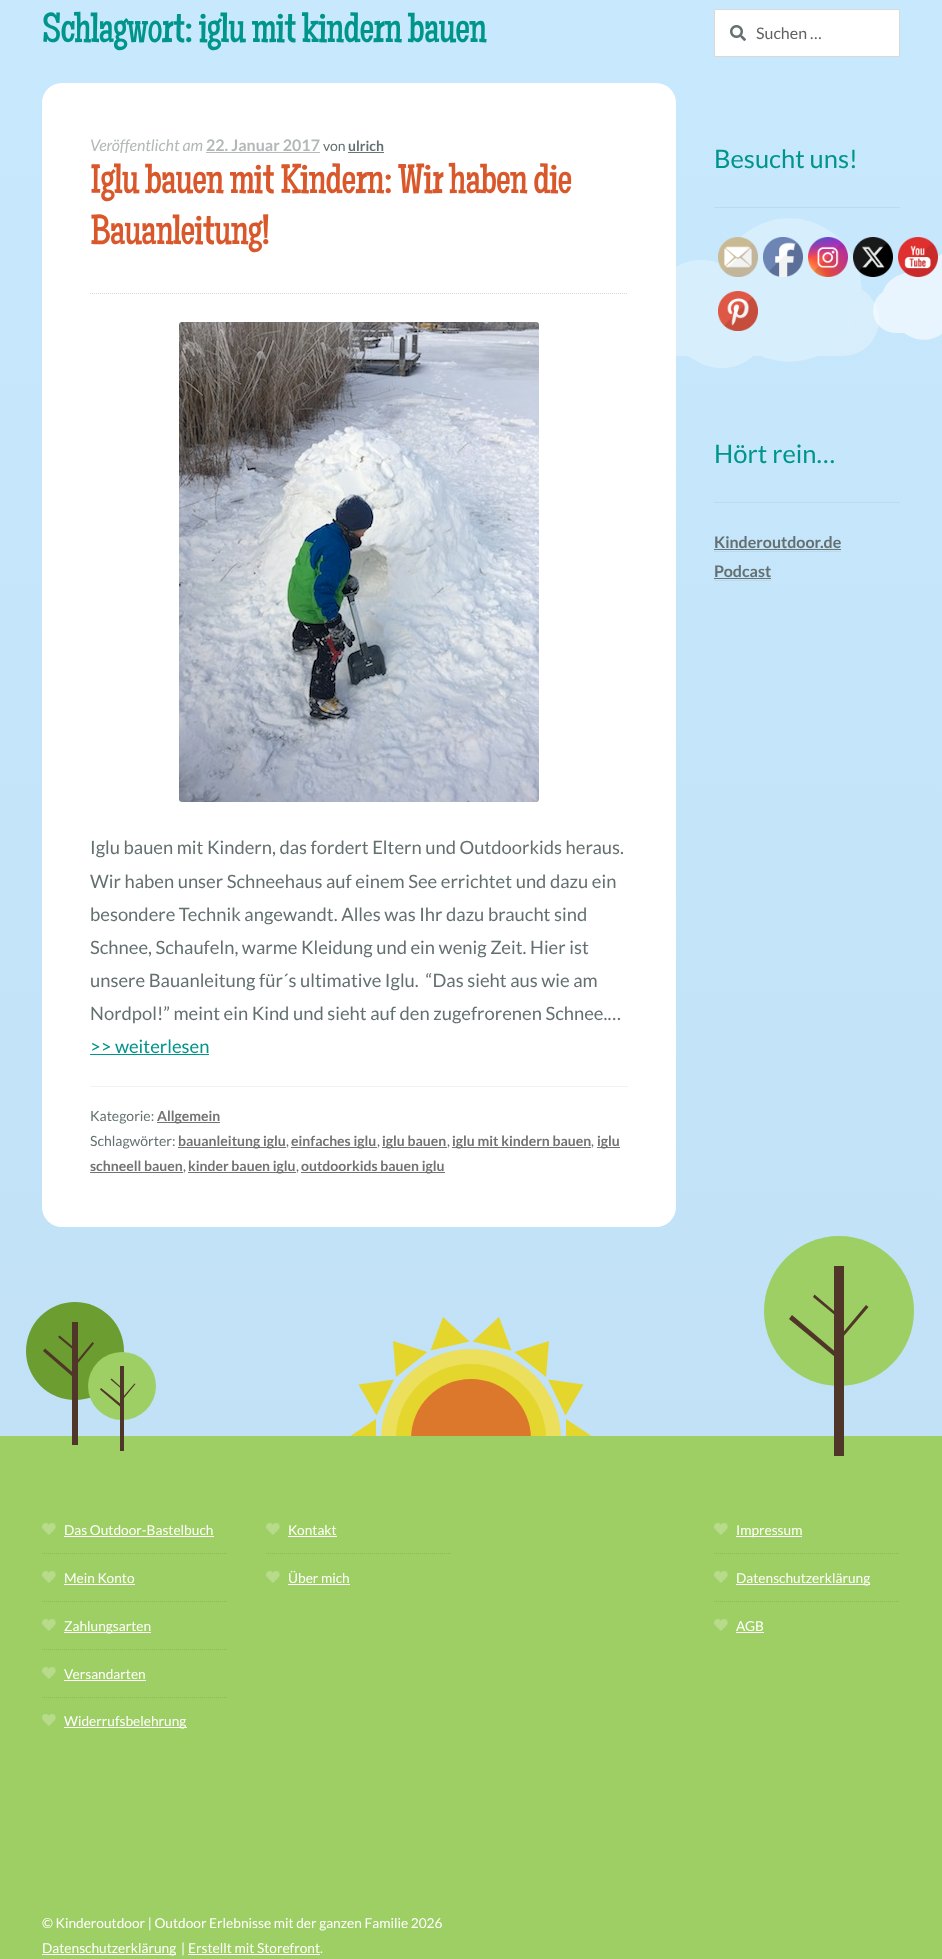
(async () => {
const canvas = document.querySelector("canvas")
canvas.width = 942
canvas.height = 1959
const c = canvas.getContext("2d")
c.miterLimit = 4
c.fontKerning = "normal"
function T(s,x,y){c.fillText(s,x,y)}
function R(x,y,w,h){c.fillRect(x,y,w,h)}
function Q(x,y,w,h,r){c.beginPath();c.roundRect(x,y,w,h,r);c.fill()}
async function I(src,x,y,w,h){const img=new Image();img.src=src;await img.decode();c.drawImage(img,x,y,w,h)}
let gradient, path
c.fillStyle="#fff"
R(0,0,942,1959)
gradient = c.createLinearGradient(471,-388,471,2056)
gradient.addColorStop(0,"#c9eaff")
gradient.addColorStop(1,"#bfdef3")
c.fillStyle = gradient
R(0,0,942,1436)
c.letterSpacing="-1px"
c.font="41.9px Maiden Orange"
c.fillStyle="#00958b"
T("Schlagwort: iglu mit kindern bauen",42,42)
c.fillStyle="#e8f5fe"
Q(873,288,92,45,22.5)
c.fillStyle="#ffffff4d"
Q(639,284,240,72,36)
c.fillStyle="#d7eefd"
path = new Path2D("M725 266l21 12c23 14 31 43 17 66c-13 23-42 31-65 18l-21-12c-23-14-31-43-18-66c14-23 43-31 66-18z")
c.fill(path)
c.fillStyle="#fff"
Q(42,83,634,1144,20)
path = new Path2D("M90 293.5h538")
c.strokeStyle="#d9d9d9"
c.setLineDash([1,1])
c.stroke(path)
c.letterSpacing="0px"
c.font="italic 16px Lato"
c.fillStyle="#b2b8b8"
T("Veröffentlicht am",90,151)
c.font="bold 16px Lato"
T("22. Januar 2017",206,151)
c.fillStyle="#b4baba"
R(206,152,114,1)
c.font="14px Lato"
c.fillStyle="#647070"
T("von",323,151)
c.fillStyle="#697575"
R(348,152,36,1)
c.font="bold 14px Lato"
c.fillStyle="#647070"
T("ulrich",348,151)
c.letterSpacing="-1px"
c.font="41.9px Maiden Orange"
c.fillStyle="#d9582b"
T("Iglu bauen mit Kindern: Wir haben die",90,193)
T("Bauanleitung!",90,244)
await I("1.png",179,322,360,480)
c.letterSpacing="0px"
c.font="18.4px Lato"
c.fillStyle="#647070"
T("Iglu bauen mit Kindern, das fordert Eltern und Outdoorkids heraus.",90,854)
T("Wir haben unser Schneehaus auf einem See errichtet und dazu ein",90,888)
T("besondere Technik angewandt. Alles was Ihr dazu braucht sind",90,921)
T("Schnee, Schaufeln, warme Kleidung und ein wenig Zeit. Hier ist",90,954)
T("unsere Bauanleitung für´s ultimative Iglu.  “Das sieht aus wie am",90,987)
T("Nordpol!” meint ein Kind und sieht auf den zugefrorenen Schnee.…",90,1020)
c.fillStyle="#00958b"
T(">> weiterlesen",90,1053)
R(90,1054,119,1)
c.fillStyle="#f2f2f2"
R(90,1086,538,1)
c.font="14px Lato"
c.fillStyle="#647070"
T("Kategorie:",90,1121)
c.fillStyle="#727272"
R(157,1122,63,1)
c.font="bold 14px Lato"
T("Allgemein",157,1121)
c.font="14px Lato"
c.fillStyle="#647070"
T("Schlagwörter:",90,1146)
c.fillStyle="#727272"
R(178,1147,108,1)
c.font="bold 14px Lato"
T("bauanleitung iglu",178,1146)
c.font="14px Lato"
c.fillStyle="#647070"
T(",",286,1146)
c.fillStyle="#727272"
R(291,1147,86,1)
c.font="bold 14px Lato"
T("einfaches iglu",291,1146)
c.font="14px Lato"
c.fillStyle="#647070"
T(",",377,1146)
c.fillStyle="#727272"
R(382,1147,65,1)
c.font="bold 14px Lato"
T("iglu bauen",382,1146)
c.font="14px Lato"
c.fillStyle="#647070"
T(",",447,1146)
c.fillStyle="#727272"
R(452,1147,139,1)
c.font="bold 14px Lato"
T("iglu mit kindern bauen",452,1146)
c.font="14px Lato"
c.fillStyle="#647070"
T(",",591,1146)
c.fillStyle="#727272"
R(597,1147,23,1)
c.font="bold 14px Lato"
T("iglu",597,1146)
T("schneell bauen",90,1171)
R(90,1172,93,1)
c.font="14px Lato"
c.fillStyle="#647070"
T(",",183,1171)
c.fillStyle="#727272"
R(188,1172,108,1)
c.font="bold 14px Lato"
T("kinder bauen iglu",188,1171)
c.font="14px Lato"
c.fillStyle="#647070"
T(",",296,1171)
c.fillStyle="#727272"
R(301,1172,144,1)
c.font="bold 14px Lato"
T("outdoorkids bauen iglu",301,1171)
c.fillStyle="#fff"
c.beginPath()
c.rect(714.5,9.5,185,47)
c.fill()
c.setLineDash([])
c.stroke()
await I("2.png",730,25,16,16)
c.font="16px Lato"
c.fillStyle="#616161"
T("Suchen …",756,39)
c.fillStyle="#bddbef"
R(714,207,186,1)
c.font="25.5px Lato"
c.fillStyle="#00958b"
T("Besucht uns!",714,168)
c.fillStyle="#d7eefd"
path = new Path2D("M825 228c35 20 47 64 27 98c-20 34-64 46-99 26c-34-20-46-64-26-98c20-34 64-46 98-26z")
c.fill(path)
await I("3.png",718,237,40,40)
await I("4.png",763,237,40,40)
await I("5.png",808,237,40,40)
c.fillStyle="#e8f5fe"
path = new Path2D("M926 277l13 7c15 8 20 27 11 41c-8 14-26 19-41 11l-13-8c-14-8-19-26-11-41c9-14 27-19 41-10z")
c.fill(path)
await I("6.png",853,237,40,40)
path = new Path2D("M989 252c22 13 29 40 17 62c-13 21-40 29-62 16c-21-12-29-40-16-61c12-22 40-29 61-17z")
c.fill(path)
await I("7.png",898,237,40,40)
await I("8.png",718,291,40,40)
c.fillStyle="#bbdbee"
R(714,502,186,1)
c.fillStyle="#00958b"
T("Hört rein…",714,463)
c.font="bold 16px Lato"
c.fillStyle="#647070"
T("Kinderoutdoor.de",714,548)
c.fillStyle="#bbdaee"
R(714,551,127,1)
c.fillStyle="#697575"
R(714,549,127,1)
c.fillStyle="#647070"
T("Podcast",714,577)
c.fillStyle="#bbdaee"
R(714,580,57,1)
c.fillStyle="#697575"
R(714,578,57,1)
c.fillStyle="#6b9d31"
c.beginPath()
c.arc(75,1351,49,0,7)
c.fill()
c.fillStyle="#ebdf5b"
c.beginPath()
c.roundRect(381,1349,180,90,[90,90,0,0])
c.fill()
c.fillStyle="#e5d62e"
path = new Path2D("M427.5 1352l-31.5 25l-3-36z")
c.fill(path)
path = new Path2D("M546 1377l-31.5-25l34.5-11z")
c.fill(path)
c.beginPath()
c.roundRect(396,1364,150,75,[74,75,0,0])
c.fill()
c.fillStyle="#dc782c"
c.beginPath()
c.roundRect(411,1379,120,60,[60,60,0,0])
c.fill()
c.fillStyle="#e5d62e"
path = new Path2D("M376 1419v40l-30-20z")
c.fill(path)
path = new Path2D("M566 1459v-40l30 20z")
c.fill(path)
c.fillStyle="#9ecf65"
R(0,1436,942,523)
c.fillStyle="#4f3628"
R(72,1322,6,123)
path = new Path2D("M45 1348.5l29.5 25.5l-2 2.5l-29.5-25.5zm47.5-6.5l1.5 1.5l-16.5 20l-1.5-1.5z")
c.fill(path)
path = new Path2D("M59.5 1335.5l15 12.5l-1.5 1.5l-15-12.5z")
c.fill(path)
c.fillStyle="#e5d62e"
path = new Path2D("M469.5 1341.5l-39 9l12.5-33.5z")
c.fill(path)
path = new Path2D("M511.5 1350.5l-39-9l26.5-24.5z")
c.fill(path)
path = new Path2D("M394 1379.5l-17.5 36l-18-31z")
c.fill(path)
path = new Path2D("M565.5 1415.5l-17.5-36l35.5 5z")
c.fill(path)
c.fillStyle="#9ecf65"
c.beginPath()
c.arc(839,1311,75,0,7)
c.fill()
c.fillStyle="#4f3628"
R(834,1266,10,190)
path = new Path2D("M792 1315l46 39l-3 3l-46-38z")
c.fill(path)
path = new Path2D("M866 1305l2.5 2l-26 30.5l-2-2zm-51.5-10.5l23 19.5l-1.5 2l-23-19z")
c.fill(path)
c.fillStyle="#9ecf65"
c.beginPath()
c.arc(122,1386,34,0,7)
c.fill()
c.fillStyle="#4f3628"
R(120,1366,4,85)
path = new Path2D("M101 1388l21 17l-1.5 2l-20.5-17.5zm33.5-4.5l1 .5l-11.5 14l-1-1z")
c.fill(path)
path = new Path2D("M111.5 1378.5l10 9l-.5 1l-10.5-9z")
c.fill(path)
path = new Path2D("M42 1553.5h186")
c.strokeStyle="#8eba5b"
c.setLineDash([1,1])
c.stroke(path)
await I("9.png",42,1523,14,12)
c.font="13.7px Lato"
c.fillStyle="#fff"
T("Das Outdoor-Bastelbuch",64,1535)
R(64,1536,150,1)
path = new Path2D("M42 1601.5h186")
c.stroke(path)
await I("9.png",42,1571,14,12)
T("Mein Konto",64,1583)
R(64,1584,71,1)
path = new Path2D("M42 1649.5h186")
c.stroke(path)
await I("9.png",42,1619,14,12)
R(64,1632,87,1)
T("Zahlungsarten",64,1631)
path = new Path2D("M42 1697.5h186")
c.stroke(path)
await I("9.png",42,1667,14,12)
T("Versandarten",64,1679)
R(64,1680,82,1)
await I("9.png",42,1714,14,12)
R(64,1727,123,1)
T("Widerrufsbelehrung",64,1726)
path = new Path2D("M266 1553.5h186")
c.stroke(path)
await I("9.png",266,1523,14,12)
T("Kontakt",288,1535)
R(288,1536,49,1)
await I("9.png",266,1571,14,12)
T("Über mich",288,1583)
R(288,1584,62,1)
path = new Path2D("M714 1553.5h186")
c.stroke(path)
await I("9.png",714,1523,14,12)
R(736,1536,66,1)
T("Impressum",736,1535)
path = new Path2D("M714 1601.5h186")
c.stroke(path)
await I("9.png",714,1571,14,12)
R(736,1584,134,1)
T("Datenschutzerklärung",736,1583)
await I("9.png",714,1619,14,12)
T("AGB",736,1631)
R(736,1632,28,1)
T("© Kinderoutdoor | Outdoor Erlebnisse mit der ganzen Familie 2026",42,1928)
R(42,1954,134,1)
T("Datenschutzerklärung",42,1953)
T("|",181,1953)
T("Erstellt mit Storefront.",188,1953)
R(188,1954,132,1)
})()
